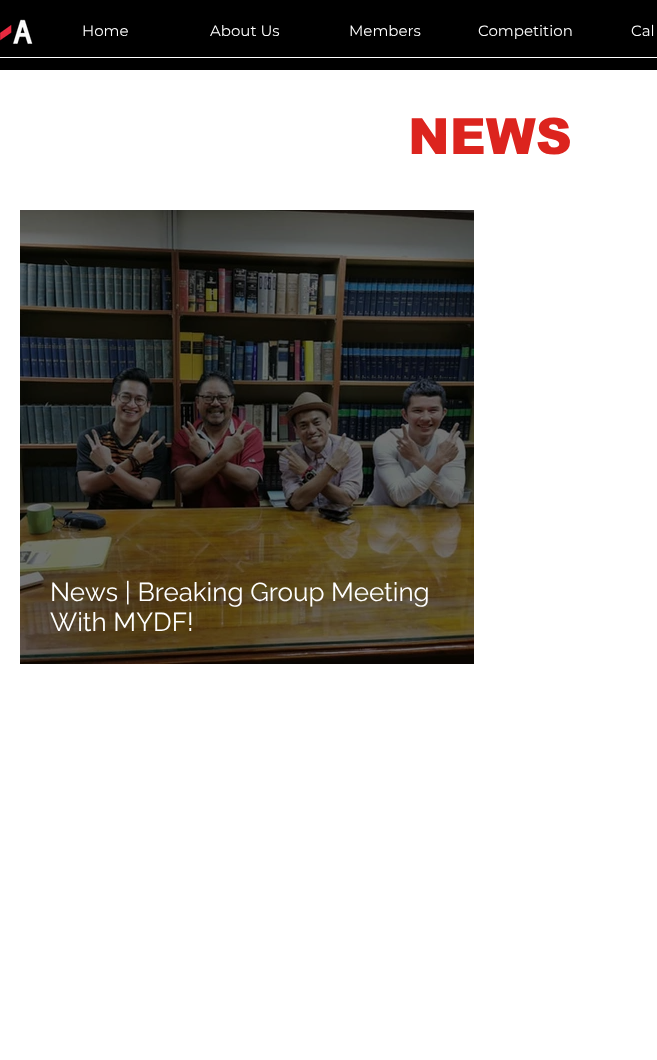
(async () => {
const canvas = document.querySelector("canvas")
canvas.width = 657
canvas.height = 1060
const c = canvas.getContext("2d")
c.miterLimit = 4
c.fontKerning = "normal"
function T(s,x,y){c.fillText(s,x,y)}
function R(x,y,w,h){c.fillRect(x,y,w,h)}
async function I(src,x,y,w,h){const img=new Image();img.src=src;await img.decode();c.drawImage(img,x,y,w,h)}
c.fillStyle="#fff"
R(0,0,657,1060)
c.fillStyle="#000"
R(0,0,657,70)
await I("1.png",0,19,33,25)
c.font="15px Montserrat"
c.fillStyle="#fff"
T("Home",82,36)
T("About Us",210,36)
T("Members",349,36)
T("Competition",478,36)
T("Cal",631,36)
R(0,57,657,1)
c.font="900 50px arial"
c.fillStyle="#dc241e"
T("NEWS",408,154)
await I("2.png",20,210,454,454)
c.font="26px Raleway"
c.fillStyle="#fff"
T("News | Breaking Group Meeting",50,601)
T("With MYDF!",50,631)
})()
